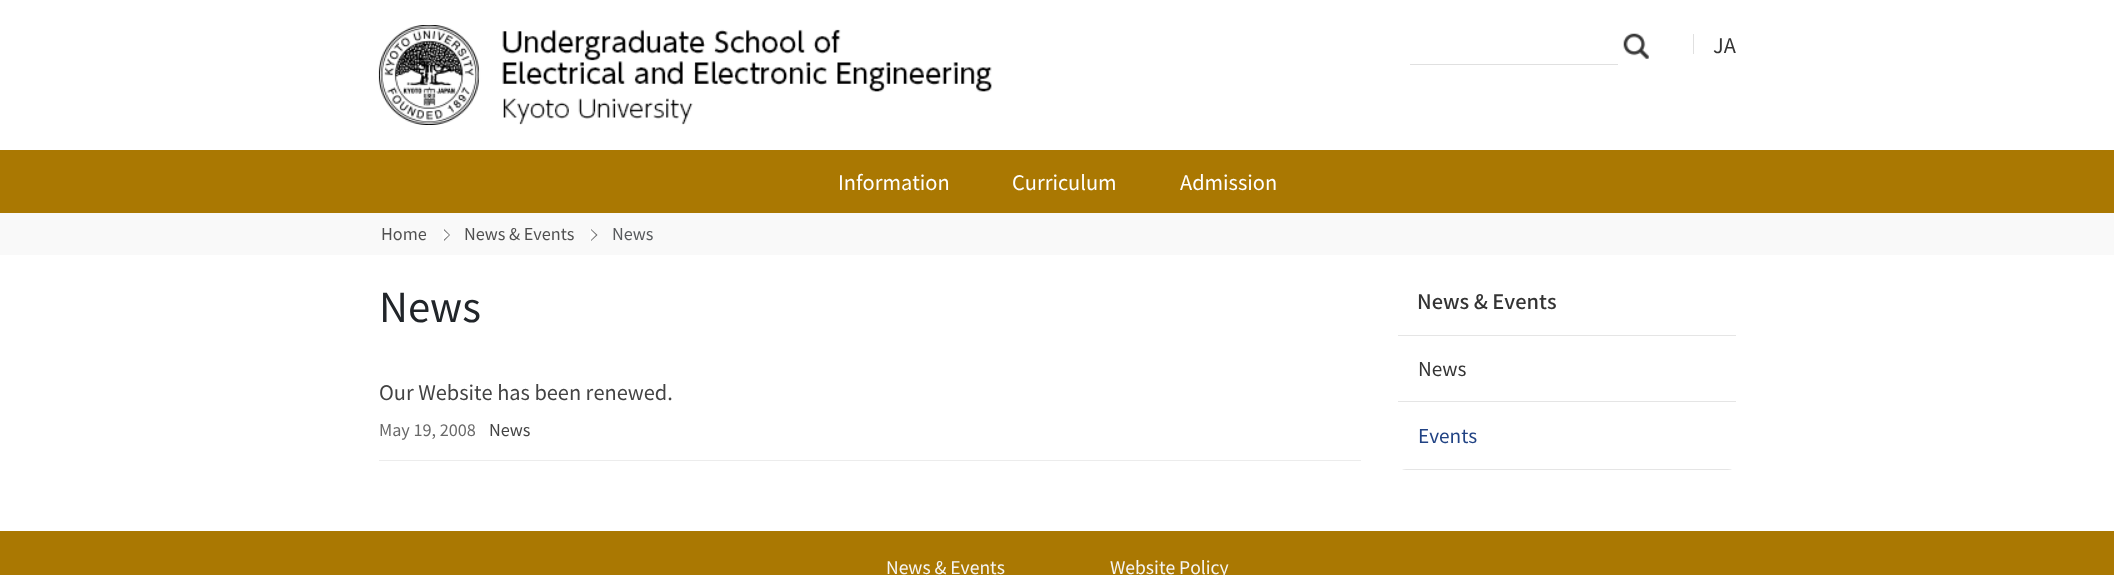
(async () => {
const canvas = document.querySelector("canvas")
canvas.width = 2114
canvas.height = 575
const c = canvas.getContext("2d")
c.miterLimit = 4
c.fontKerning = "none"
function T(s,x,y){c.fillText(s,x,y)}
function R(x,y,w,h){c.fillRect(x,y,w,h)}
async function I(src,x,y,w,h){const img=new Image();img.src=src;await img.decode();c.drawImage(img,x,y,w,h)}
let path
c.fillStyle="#fff"
R(0,0,2114,575)
await I("1.png",378,25,614,100)
c.fillStyle="#e0e0e0"
R(1693,34,1,20)
c.font="20px Noto Sans JP"
c.fillStyle="#343434"
T("JA",1713,53)
c.fillStyle="#aa7802"
R(0,150,2114,63)
await I("2.png",1623,33,26,26)
c.fillStyle="#e0e0e0"
R(1410,64,208,1)
c.fillStyle="#fff"
T("Information",838,190)
T("Curriculum",1012,190)
T("Admission",1180,190)
c.fillStyle="#f9f9f9"
R(0,213,2114,42)
c.font="16.25px Noto Sans JP"
c.fillStyle="#505050"
T("Home",381,240)
c.fillStyle="#696969"
path = new Path2D("M444 241v-12l6 6z")
c.fill(path)
c.fillStyle="#fff"
path = new Path2D("M442.5 241v-12l6.5 6z")
c.fill(path)
c.fillStyle="#505050"
T("News & Events",464,240)
c.fillStyle="#696969"
path = new Path2D("M591 241v-12l6.5 6z")
c.fill(path)
c.fillStyle="#fff"
path = new Path2D("M590 241v-12l6 6z")
c.fill(path)
c.fillStyle="#575a5d"
T("News",612,240)
c.font="40px Noto Sans JP"
c.fillStyle="#212529"
T("News",379,322)
c.fillStyle="#ececec"
R(379,460,982,1)
c.font="20px Noto Sans JP"
c.fillStyle="#434343"
T("Our Website has been renewed.",379,400)
c.font="16.25px Noto Sans JP"
c.fillStyle="#696969"
T("May 19, 2008",379,436)
c.fillStyle="#434343"
T("News",489,436)
c.fillStyle="#e5e5e5"
R(1398,335,338,1)
c.font="500 20px Noto Sans JP"
c.fillStyle="#343434"
T("News & Events",1417,309)
c.fillStyle="#e5e5e5"
R(1398,401,338,1)
c.font="19px Noto Sans JP"
c.fillStyle="#343434"
T("News",1418,376)
c.save()
c.beginPath()
c.roundRect(1398,268,338,202,8)
c.clip()
c.fillStyle="#e5e5e5"
R(1398,469,338,1)
c.restore()
c.fillStyle="#214384"
T("Events",1418,443)
c.fillStyle="#aa7802"
R(0,531,2114,44)
c.font="17.5px Noto Sans JP"
c.fillStyle="#f6f6f6"
T("News & Events",886,574)
T("Website Policy",1110,574)
})()
